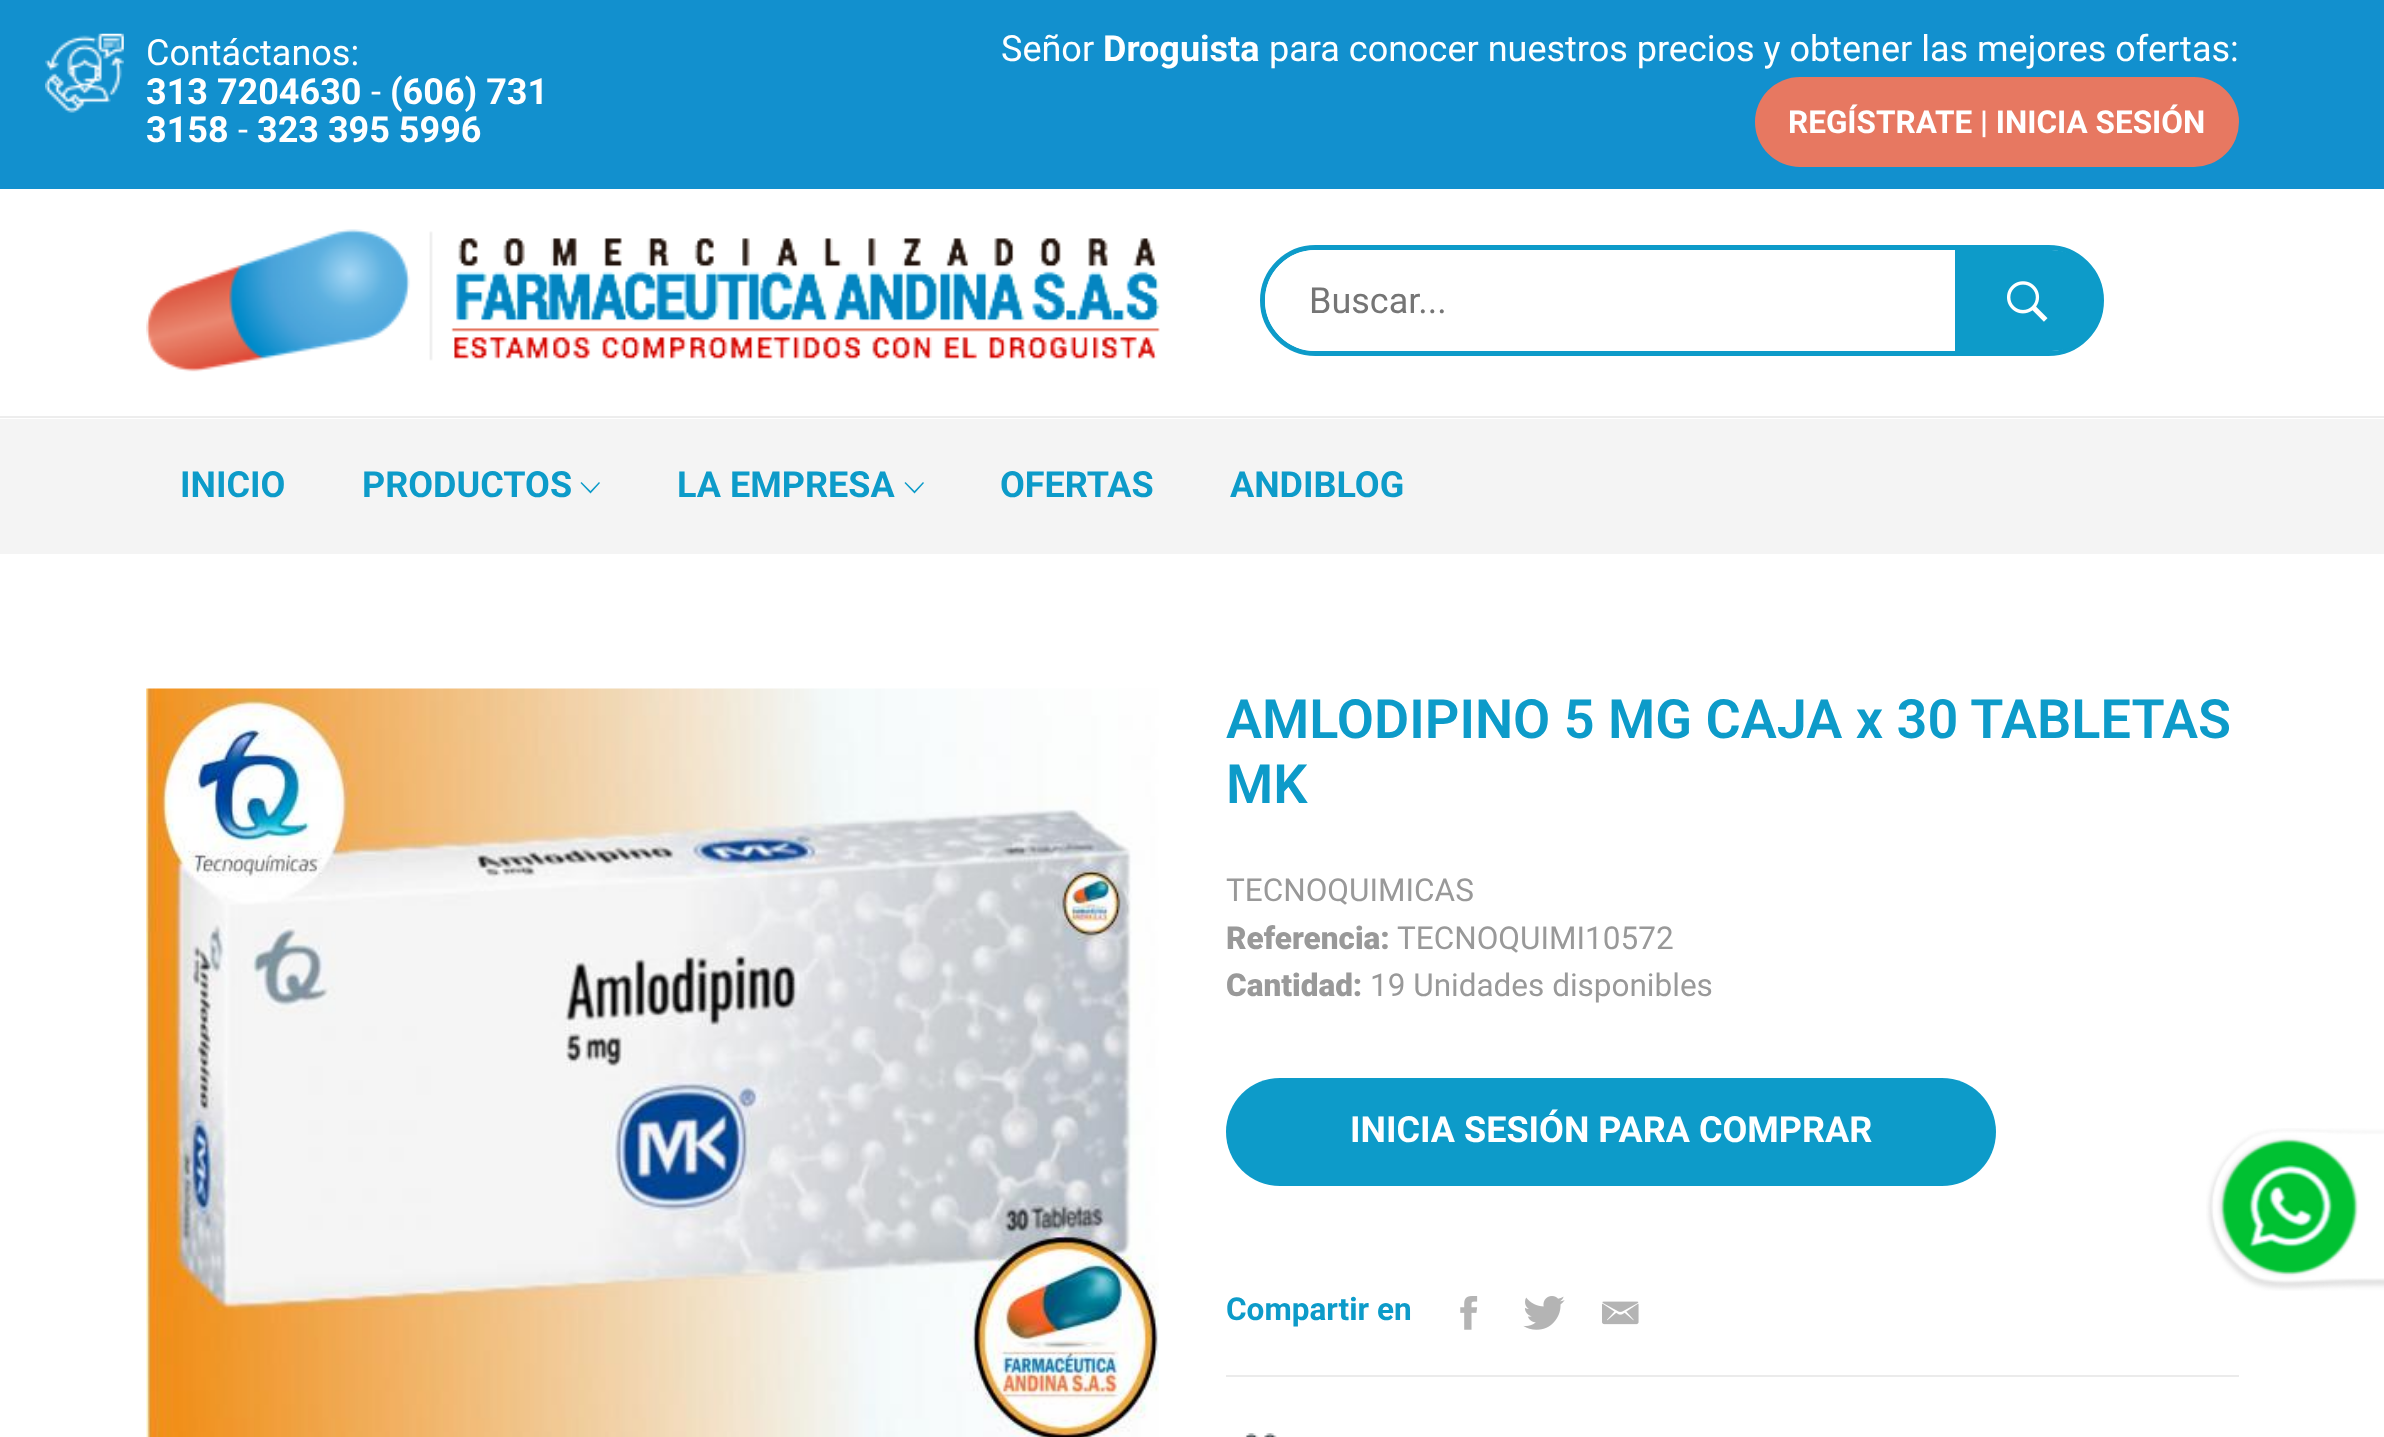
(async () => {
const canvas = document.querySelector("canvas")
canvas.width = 2384
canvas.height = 1437
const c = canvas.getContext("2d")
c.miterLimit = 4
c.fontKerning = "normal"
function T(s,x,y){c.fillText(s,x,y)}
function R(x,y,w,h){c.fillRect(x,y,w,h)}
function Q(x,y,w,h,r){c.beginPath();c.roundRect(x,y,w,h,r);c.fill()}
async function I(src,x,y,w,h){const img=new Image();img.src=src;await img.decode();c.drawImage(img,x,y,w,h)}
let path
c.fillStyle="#fff"
R(0,0,2384,1437)
c.fillStyle="#1290ce"
R(0,0,2384,189)
await I("1.png",45,33,79,80)
c.font="36px Roboto"
c.fillStyle="#fff"
T("Contáctanos:",146,65)
c.font="bold 36px Roboto"
T("313 7204630",146,104)
c.font="36px Roboto"
T("-",371,104)
c.font="bold 36px Roboto"
T("(606) 731",390,104)
T("3158",146,142)
c.font="36px Roboto"
T("-",238,142)
c.font="bold 36px Roboto"
T("323 395 5996",257,142)
c.font="36px Roboto"
T("Señor",1001,61)
c.font="bold 36px Roboto"
T("Droguista",1103,61)
c.font="36px Roboto"
T("para conocer nuestros precios y obtener las mejores ofertas:",1269,61)
c.fillStyle="#e77861"
Q(1755,77,484,90,45)
c.font="bold 31.5px Roboto"
c.fillStyle="#fff"
T("REGÍSTRATE | INICIA SESIÓN",1788,133)
c.fillStyle="#ededed"
R(0,416,2384,2)
await I("2.png",146,229,1014,143)
c.beginPath()
c.roundRect(1262.5,247.5,839,106,53)
c.strokeStyle="#0d9bc9"
c.lineWidth=5
c.stroke()
c.fillStyle="#fff"
Q(1265,250,834,101,50.5)
c.font="36px Roboto"
c.fillStyle="#757575"
T("Buscar...",1309,313)
c.fillStyle="#0d9bc9"
c.beginPath()
c.roundRect(1955,250,147,101,[0,50.5,50.5,0])
c.fill()
await I("3.png",2007,281,41,41)
c.fillStyle="#f4f4f4"
R(0,419,2384,135)
c.font="bold 36px Roboto"
c.fillStyle="#0d9bc9"
T("INICIO",180,497)
T("PRODUCTOS",362,497)
path = new Path2D("M599 482l1 1l-9.5 10.5l-10-10.5l1-1l9 9z")
c.fill(path)
T("LA EMPRESA",677,497)
path = new Path2D("M923 482l1 1l-9.5 10.5l-10-10.5l1-1l9 9z")
c.fill(path)
T("OFERTAS",1000,497)
T("ANDIBLOG",1230,497)
await I("4.png",146,688,1013,749)
c.font="600 54px Roboto"
T("AMLODIPINO 5 MG CAJA x 30 TABLETAS",1226,738)
T("MK",1226,803)
c.font="31.5px Roboto"
c.fillStyle="#999"
T("TECNOQUIMICAS",1226,901)
c.font="900 31.5px Roboto"
T("Referencia:",1226,949)
c.font="31.5px Roboto"
T("TECNOQUIMI10572",1397,949)
c.font="900 31.5px Roboto"
T("Cantidad:",1226,996)
c.font="31.5px Roboto"
T("19 Unidades disponibles",1370,996)
c.fillStyle="#0d9bc9"
Q(1226,1078,770,108,54)
c.font="bold 36px Roboto"
c.fillStyle="#fff"
T("INICIA SESIÓN PARA COMPRAR",1350,1142)
c.fillStyle="#ebebeb"
R(1226,1375,1013,2)
c.font="bold 31.5px Roboto"
c.fillStyle="#0d9bc9"
T("Compartir en",1226,1320)
await I("5.png",1460,1296,18,34)
await I("6.png",1523,1296,42,34)
await I("7.png",1602,1301,37,24)
await I("8.png",1244,1433,33,4)
await I("9.png",2206,1128,178,163)
})()
